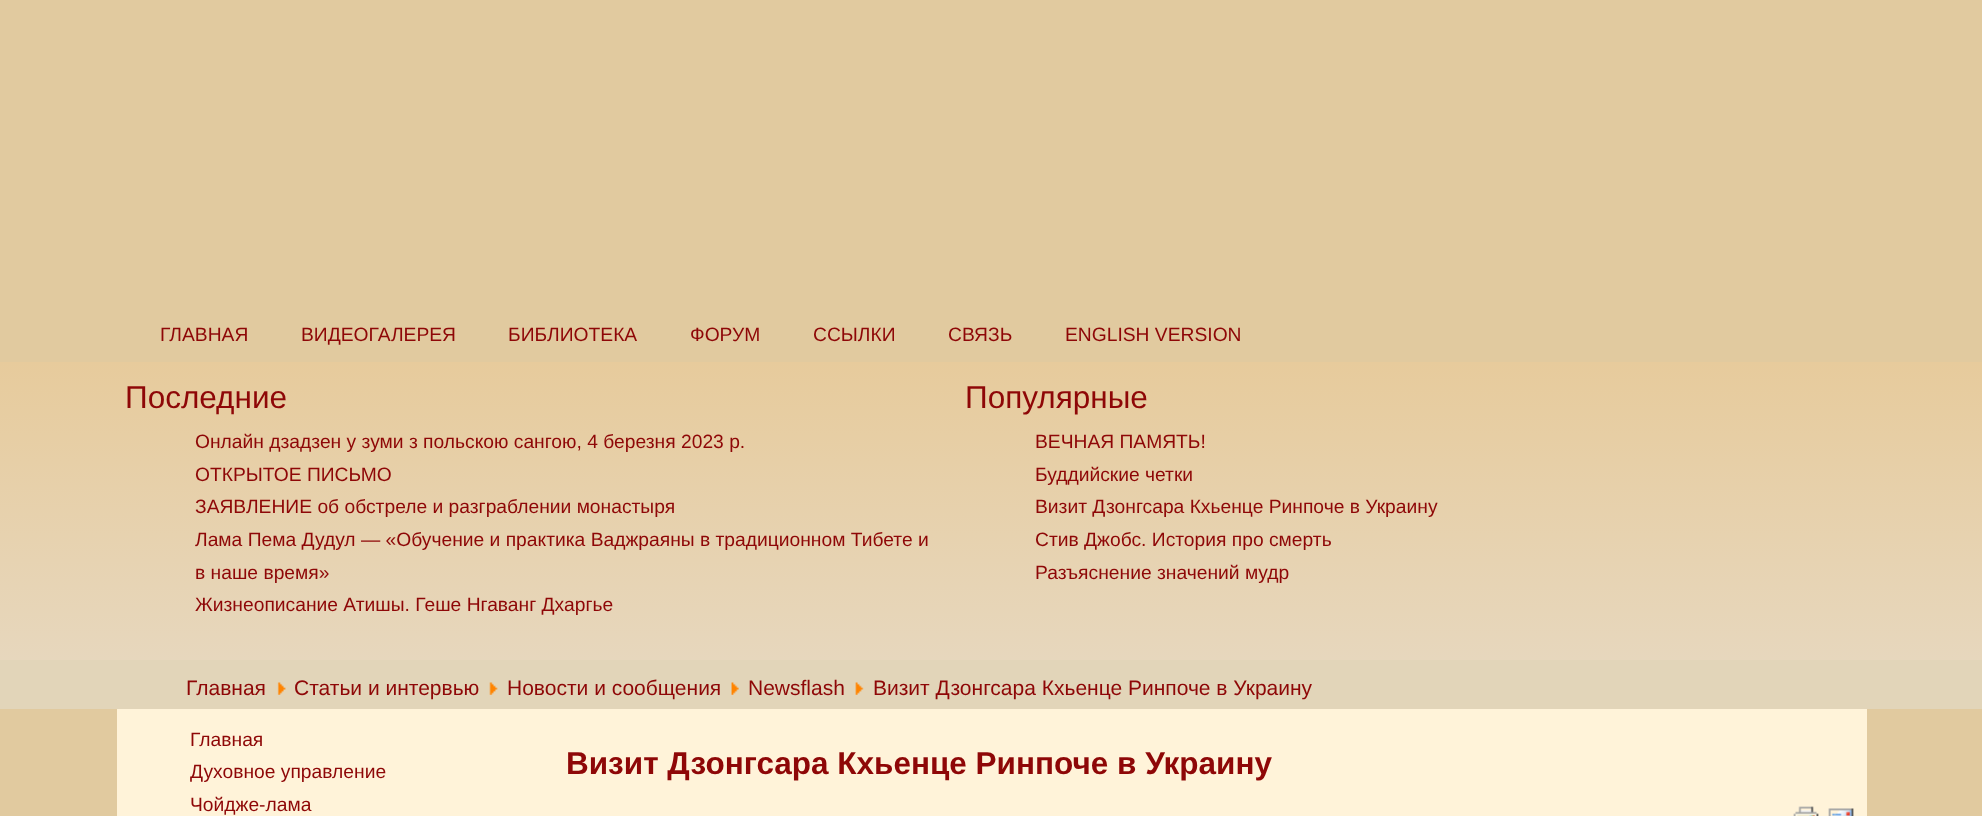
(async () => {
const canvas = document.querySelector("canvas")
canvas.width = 1982
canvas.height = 816
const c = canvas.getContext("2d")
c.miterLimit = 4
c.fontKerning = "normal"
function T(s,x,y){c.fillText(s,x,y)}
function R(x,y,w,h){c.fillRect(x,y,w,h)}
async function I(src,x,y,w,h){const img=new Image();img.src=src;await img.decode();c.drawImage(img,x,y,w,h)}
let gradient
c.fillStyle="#e1ca9f"
R(0,0,1982,816)
c.font="19.25px Liberation Sans"
c.fillStyle="#8e0707"
T("ГЛАВНАЯ",160,341)
T("ВИДЕОГАЛЕРЕЯ",301,341)
T("БИБЛИОТЕКА",508,341)
T("ФОРУМ",690,341)
T("ССЫЛКИ",813,341)
T("СВЯЗЬ",948,341)
T("ENGLISH VERSION",1065,341)
gradient = c.createLinearGradient(991,362,991,660)
gradient.addColorStop(0,"#e7cb9c")
gradient.addColorStop(1,"#e7d7bd")
c.fillStyle = gradient
R(0,362,1982,298)
c.font="31.5px Liberation Sans"
c.fillStyle="#8e0707"
T("Последние",125,408)
c.font="19.25px Liberation Sans"
T("Онлайн дзадзен у зуми з польскою сангою, 4 березня 2023 р.",195,448)
T("ОТКРЫТОЕ ПИСЬМО",195,481)
T("ЗАЯВЛЕНИЕ об обстреле и разграблении монастыря",195,513)
T("Лама Пема Дудул — «Обучение и практика Ваджраяны в традиционном Тибете и",195,546)
T("в наше время»",195,579)
T("Жизнеописание Атишы. Геше Нгаванг Дхаргье",195,611)
c.font="31.5px Liberation Sans"
T("Популярные",965,408)
c.font="19.25px Liberation Sans"
T("ВЕЧНАЯ ПАМЯТЬ!",1035,448)
T("Буддийские четки",1035,481)
T("Визит Дзонгсара Кхьенце Ринпоче в Украину",1035,513)
T("Стив Джобс. История про смерть",1035,546)
T("Разъяснение значений мудр",1035,579)
c.fillStyle="#e2d5b9"
R(0,660,1982,49)
c.font="21px Liberation Sans"
c.fillStyle="#8e0707"
T("Главная",186,695)
await I("1.png",277,682,9,13)
T("Статьи и интервью",294,695)
await I("2.png",489,682,9,13)
T("Новости и сообщения",507,695)
await I("3.png",731,682,8,13)
T("Newsflash",748,695)
await I("4.png",855,682,9,13)
T("Визит Дзонгсара Кхьенце Ринпоче в Украину",873,695)
c.fillStyle="#fff3d9"
R(117,709,1750,107)
c.font="19.25px Liberation Sans"
c.fillStyle="#8e0707"
T("Главная",190,746)
T("Духовное управление",190,778)
T("Чойдже-лама",190,811)
c.font="bold 31.5px Liberation Sans"
T("Визит Дзонгсара Кхьенце Ринпоче в Украину",566,774)
await I("5.png",1793,806,26,10)
await I("6.png",1828,808,26,8)
})()
